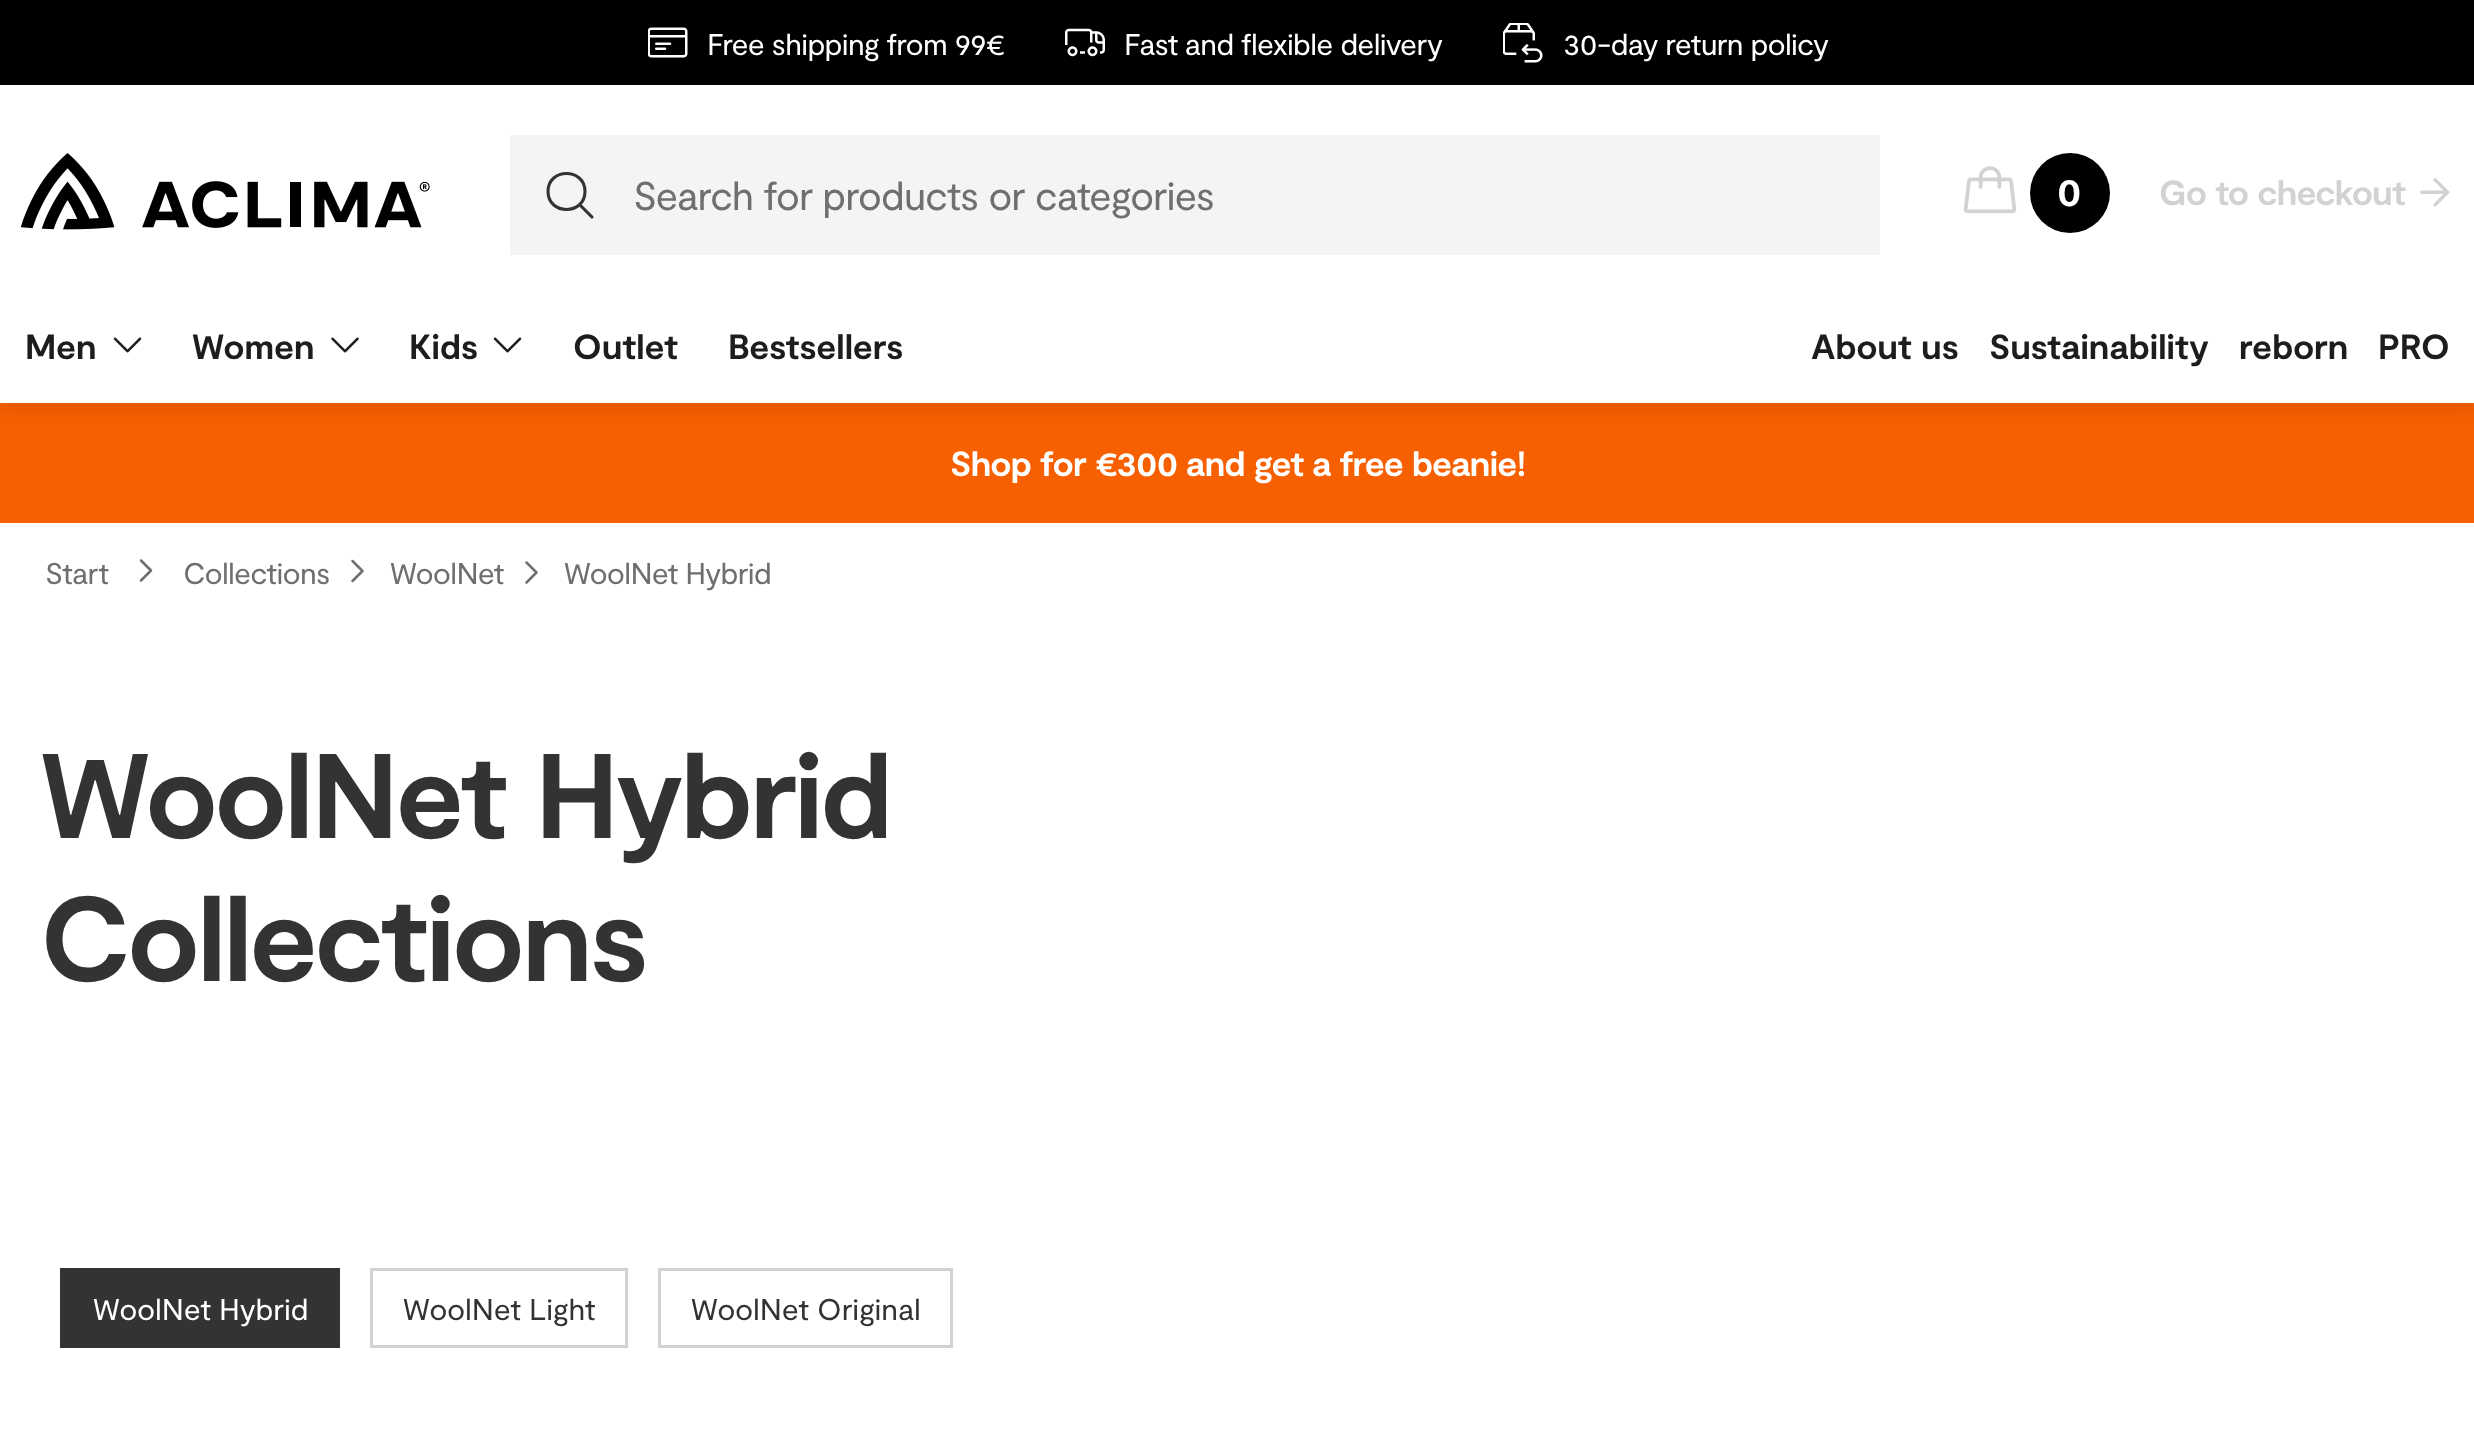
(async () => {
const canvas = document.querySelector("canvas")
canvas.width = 2474
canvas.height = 1447
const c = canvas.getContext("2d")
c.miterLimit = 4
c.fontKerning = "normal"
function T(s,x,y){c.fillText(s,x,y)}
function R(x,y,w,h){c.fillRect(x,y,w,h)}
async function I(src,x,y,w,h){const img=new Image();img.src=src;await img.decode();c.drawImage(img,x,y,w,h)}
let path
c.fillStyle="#fff"
R(0,0,2474,1447)
c.fillStyle="#f76000"
R(0,403,2474,120)
c.fillStyle="#0000001a"
c.filter="blur(12.5px)"
c.beginPath()
c.rect(-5,80,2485,328)
c.fill()
c.filter="none"
c.fillStyle="#000"
R(0,0,2474,85)
await I("1.png",648,27,40,31)
c.letterSpacing="-0.6px"
c.font="30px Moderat"
c.fillStyle="#fff"
T("Free shipping from 99€",707,55)
await I("2.png",1065,28,40,29)
T("Fast and flexible delivery",1124,55)
await I("3.png",1503,23,40,40)
T("30-day return policy",1563,55)
R(0,85,2474,318)
await I("4.png",21,153,409,77)
c.fillStyle="#f4f4f4"
R(510,135,1370,120)
path = new Path2D("M592 217l-12.5-12.5m5.5-13c0 24-37 24-37 0c0-24 37-24 37 0")
c.strokeStyle="#333"
c.lineWidth=3.1
c.lineCap="round"
c.lineJoin="round"
c.stroke(path)
c.letterSpacing="-0.8px"
c.font="40px Moderat"
c.fillStyle="#6f6f6d"
T("Search for products or categories",633,210)
await I("5.png",1963,166,54,48)
c.fillStyle="#000"
c.beginPath()
c.arc(2070,193,40,0,7)
c.fill()
c.font="bold 40px Moderat"
c.fillStyle="#fff"
T("0",2057,206)
c.letterSpacing="-0.7px"
c.font="bold 35px Moderat"
c.fillStyle="#d2d2d1"
T("Go to checkout",2159,205)
await I("6.png",2420,178,30,29)
c.letterSpacing="0px"
c.fillStyle="#1d1d1b"
T("Men",25,359)
await I("7.png",113,337,29,16)
T("Women",192,359)
await I("8.png",331,337,28,16)
T("Kids",409,359)
await I("7.png",493,337,29,16)
T("Outlet",573,359)
T("Bestsellers",728,359)
T("About us",1811,359)
T("Sustainability",1989,359)
T("reborn",2239,359)
T("PRO",2378,359)
c.letterSpacing="-0.7px"
c.fillStyle="#fff"
T("Shop for €300 and get a free beanie!",950,476)
c.letterSpacing="-0.6px"
c.font="30px Moderat"
c.fillStyle="#6f6f6d"
T("Start",45,584)
path = new Path2D("M141 580.5l10-10l-10-10")
c.strokeStyle="#6f6f6d"
c.lineWidth=2.5
c.stroke(path)
T("Collections",183,584)
path = new Path2D("M352.5 581l10-10l-10-10")
c.stroke(path)
T("WoolNet",390,584)
path = new Path2D("M526.5 582.5l10-10l-10-10")
c.stroke(path)
T("WoolNet Hybrid",564,584)
c.letterSpacing="-2.4px"
c.font="bold 120px Moderat"
c.fillStyle="#333"
T("WoolNet Hybrid",40,838)
T("Collections",40,981)
R(60,1268,280,80)
c.letterSpacing="0px"
c.font="30px Moderat"
c.fillStyle="#fff"
T("WoolNet Hybrid",93,1320)
c.strokeStyle="#d2d2d1"
c.lineWidth=3
c.lineJoin="miter"
c.strokeRect(371.5,1269.5,255,77)
c.fillStyle="#333"
T("WoolNet Light",403,1320)
c.strokeRect(659.5,1269.5,292,77)
T("WoolNet Original",691,1320)
})()
